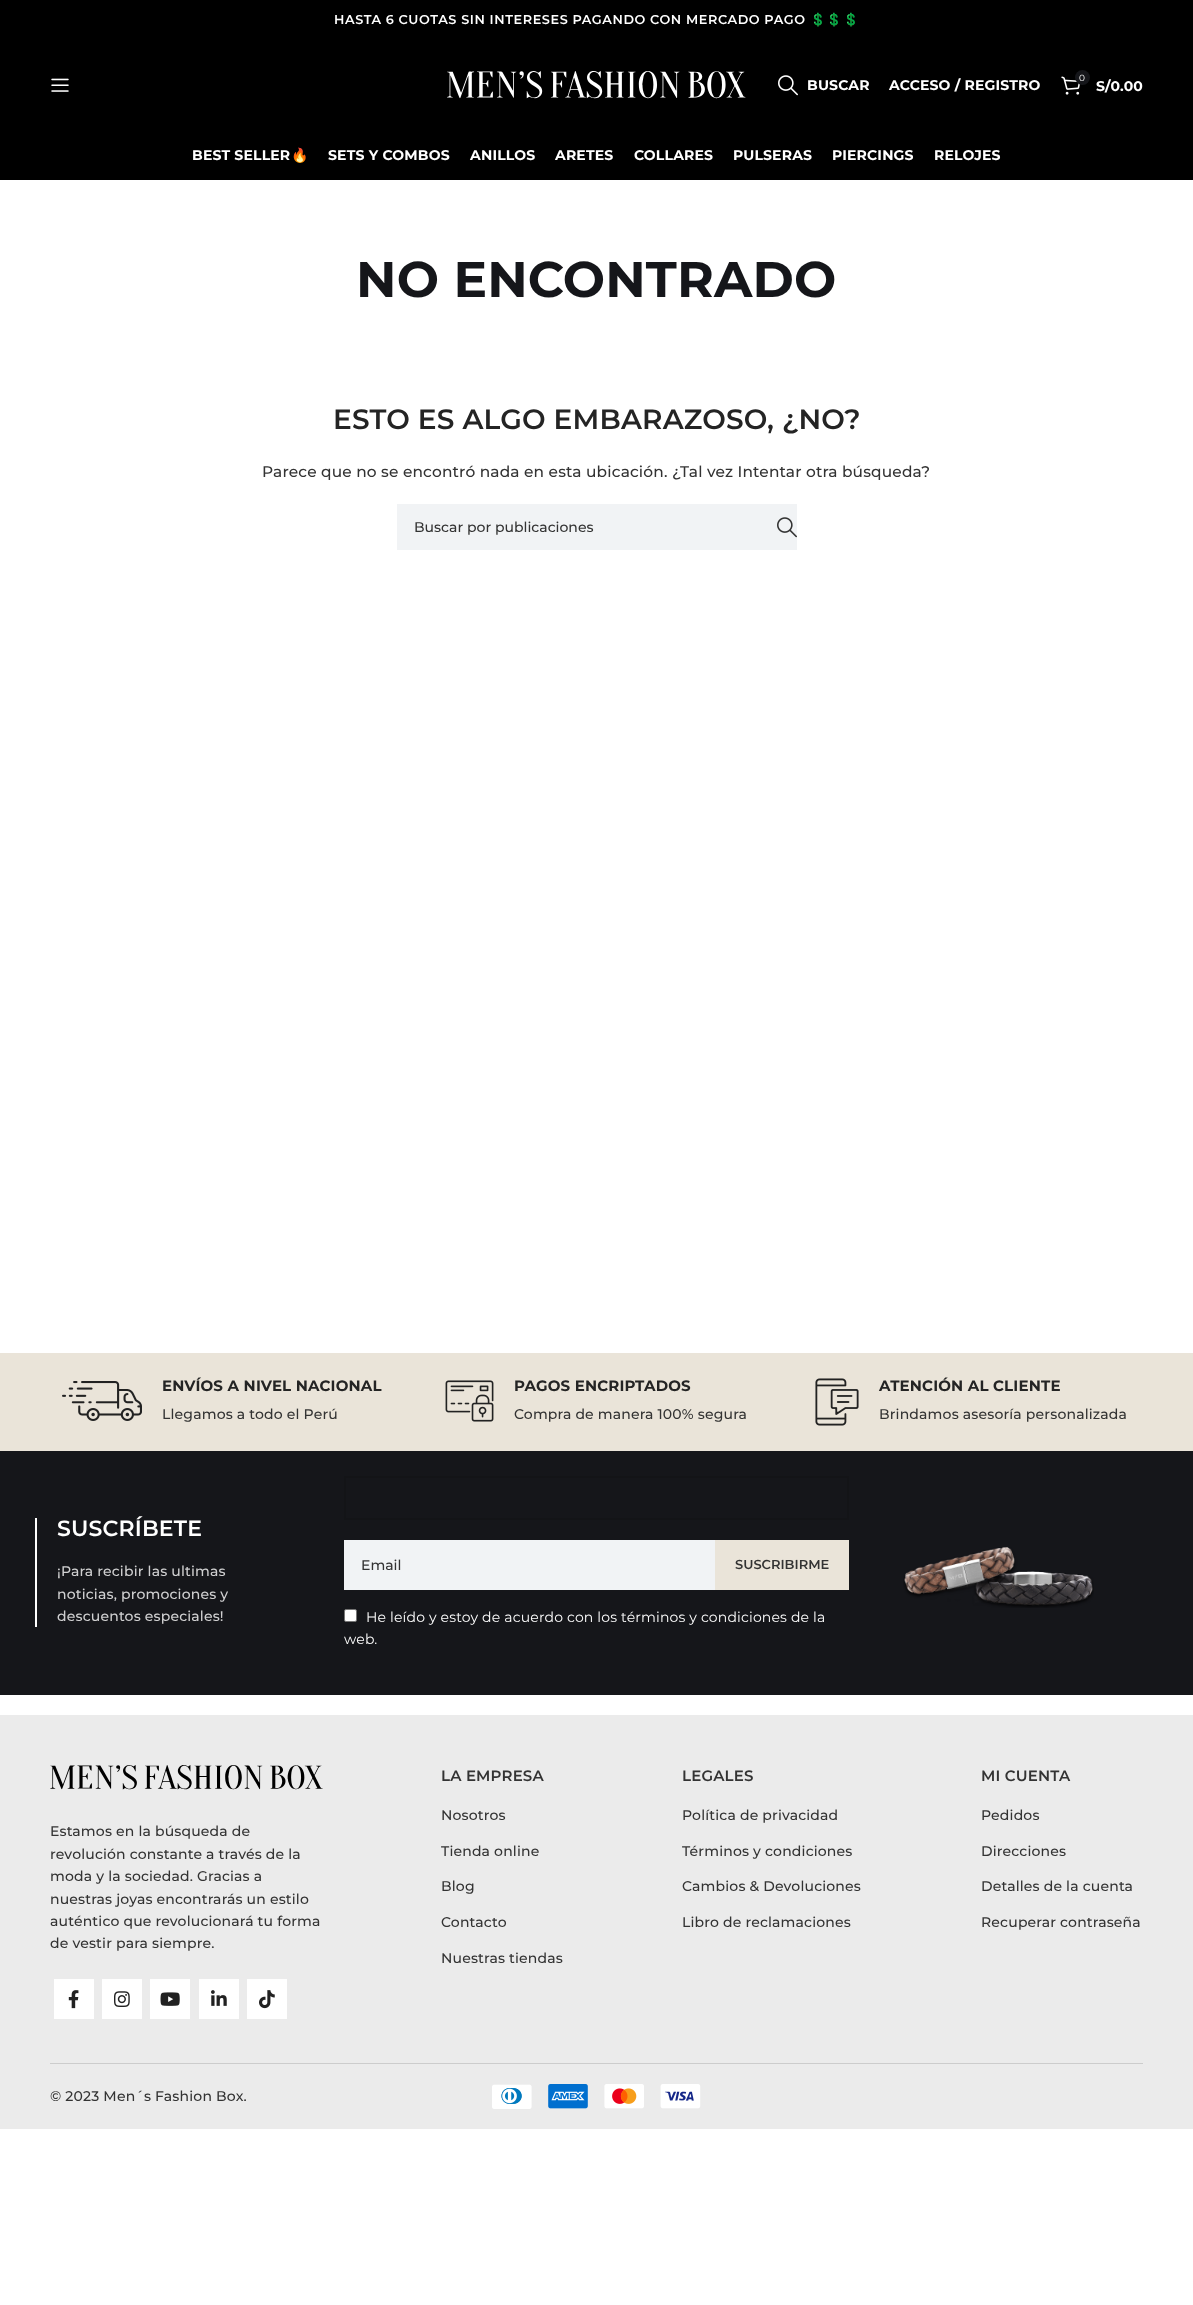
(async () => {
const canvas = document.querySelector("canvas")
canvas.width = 1193
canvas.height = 2305
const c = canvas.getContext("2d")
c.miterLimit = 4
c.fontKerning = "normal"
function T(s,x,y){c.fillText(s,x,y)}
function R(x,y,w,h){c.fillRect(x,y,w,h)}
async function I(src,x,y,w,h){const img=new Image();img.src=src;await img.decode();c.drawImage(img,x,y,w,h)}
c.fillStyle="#fff"
R(0,0,1193,2305)
c.fillStyle="#000"
R(0,0,1193,180)
c.letterSpacing="0.6px"
c.font="600 12.8px Montserrat"
c.fillStyle="#fff"
T("HASTA 6 CUOTAS SIN INTERESES PAGANDO CON MERCADO PAGO",334,24)
c.font="bold 12.8px Noto Color Emoji"
T("💲💲💲",810,24)
await I("1.png",51,78,18,14)
await I("2.png",447,71,299,28)
await I("3.png",778,75,20,21)
c.letterSpacing="0.17px"
c.font="bold 14px Montserrat"
T("BUSCAR",807,90)
T("ACCESO / REGISTRO",889,90)
await I("4.png",1061,76,19,19)
c.fillStyle="#15161a"
c.beginPath()
c.arc(1082.5,77.5,7.5,0,7)
c.fill()
c.letterSpacing="0px"
c.font="9px Montserrat"
c.fillStyle="#fff"
T("0",1079,81)
c.letterSpacing="0.17px"
c.font="bold 14px Montserrat"
T("S/0.00",1096,91)
T("BEST SELLER",192,160)
c.font="bold 14px Noto Color Emoji"
T("🔥",291,160)
c.font="bold 14px Montserrat"
T("SETS Y COMBOS",328,160)
T("ANILLOS",470,160)
T("ARETES",555,160)
T("COLLARES",634,160)
T("PULSERAS",733,160)
T("PIERCINGS",832,160)
T("RELOJES",934,160)
c.font="bold 50.1px Montserrat"
c.fillStyle="#15161a"
T("NO ENCONTRADO",356,297)
c.font="600 28px Montserrat"
c.fillStyle="#242424"
T("ESTO ES ALGO EMBARAZOSO, ¿NO?",333,429)
c.font="500 15.4px Montserrat"
c.fillStyle="#333"
T("Parece que no se encontró nada en esta ubicación. ¿Tal vez Intentar otra búsqueda?",262,477)
c.fillStyle="#f1f3f5"
R(397,504,400,46)
c.letterSpacing="0px"
c.font="500 14px Montserrat"
c.fillStyle="#333"
T("Buscar por publicaciones",414,532)
await I("5.png",777,517,20,21)
c.fillStyle="#eae4d9"
R(0,1353,1193,98)
await I("6.png",62,1381,80,40)
c.letterSpacing="0.17px"
c.font="bold 15px Montserrat"
c.fillStyle="#242424"
T("ENVÍOS A NIVEL NACIONAL",162,1391)
c.font="500 14px Montserrat"
c.fillStyle="#333"
T("Llegamos a todo el Perú",162,1419)
await I("7.png",445,1380,49,42)
c.font="bold 15px Montserrat"
c.fillStyle="#242424"
T("PAGOS ENCRIPTADOS",514,1391)
c.font="500 14px Montserrat"
c.fillStyle="#333"
T("Compra de manera 100% segura",514,1419)
await I("8.png",815,1378,44,48)
c.font="bold 15px Montserrat"
c.fillStyle="#242424"
T("ATENCIÓN AL CLIENTE",879,1391)
c.font="500 14px Montserrat"
c.fillStyle="#333"
T("Brindamos asesoría personalizada",879,1419)
c.fillStyle="#15161a"
R(0,1451,1193,244)
c.fillStyle="#fff"
R(35,1518,2,109)
c.font="600 22px Montserrat"
T("SUSCRÍBETE",57,1536)
c.font="500 14px Montserrat"
c.fillStyle="#d0d0d1"
T("¡Para recibir las ultimas",57,1576)
T("noticias, promociones y",57,1599)
T("descuentos especiales!",57,1621)
c.strokeStyle="#131417"
c.lineWidth=2
c.strokeRect(345,1477,503,42)
c.fillStyle="#f1f3f5"
R(344,1540,371,50)
c.letterSpacing="0px"
c.fillStyle="#333"
T("Email",361,1570)
c.fillStyle="#eae4d9"
R(715,1540,134,50)
c.font="600 13px Montserrat"
c.fillStyle="#333"
T("SUSCRIBIRME",735,1569)
c.fillStyle="#fff"
c.beginPath()
c.roundRect(344.5,1609.5,12,12,1.5)
c.fill()
c.strokeStyle="#767676"
c.lineWidth=1
c.stroke()
c.letterSpacing="0.17px"
c.font="14px Montserrat"
T("He leído y estoy de acuerdo con los términos y condiciones de la",366,1622)
T("web.",344,1644)
await I("9.png",903,1547,191,61)
c.fillStyle="#ebebeb"
R(0,1715,1193,414)
c.fillStyle="#ccc"
R(50,2063,1093,1)
await I("10.png",50,1765,273,25)
c.font="500 14px Montserrat"
c.fillStyle="#333"
T("Estamos en la búsqueda de",50,1836)
T("revolución constante a través de la",50,1859)
T("moda y la sociedad. Gracias a",50,1881)
T("nuestras joyas encontrarás un estilo",50,1904)
T("auténtico que revolucionará tu forma",50,1926)
T("de vestir para siempre.",50,1948)
c.fillStyle="#fff"
R(54,1979,40,40)
await I("11.png",68,1990,11,19)
R(102,1979,40,40)
await I("12.png",114,1991,16,16)
R(150,1979,40,40)
await I("13.png",160,1992,20,14)
R(199,1979,40,40)
await I("14.png",211,1990,16,16)
R(247,1979,40,40)
await I("15.png",259,1990,16,19)
c.font="600 15px Montserrat"
c.fillStyle="#333"
T("LA EMPRESA",441,1781)
c.font="500 14px Montserrat"
T("Nosotros",441,1820)
T("Tienda online",441,1856)
T("Blog",441,1891)
T("Contacto",441,1927)
T("Nuestras tiendas",441,1963)
c.font="600 15px Montserrat"
T("LEGALES",682,1781)
c.font="500 14px Montserrat"
T("Política de privacidad",682,1820)
T("Términos y condiciones",682,1856)
T("Cambios & Devoluciones",682,1891)
T("Libro de reclamaciones",682,1927)
c.font="600 15px Montserrat"
T("MI CUENTA",981,1781)
c.font="500 14px Montserrat"
T("Pedidos",981,1820)
T("Direcciones",981,1856)
T("Detalles de la cuenta",981,1891)
T("Recuperar contraseña",981,1927)
T("© 2023 Men´s Fashion Box.",50,2101)
await I("16.png",492,2084,209,25)
})()
